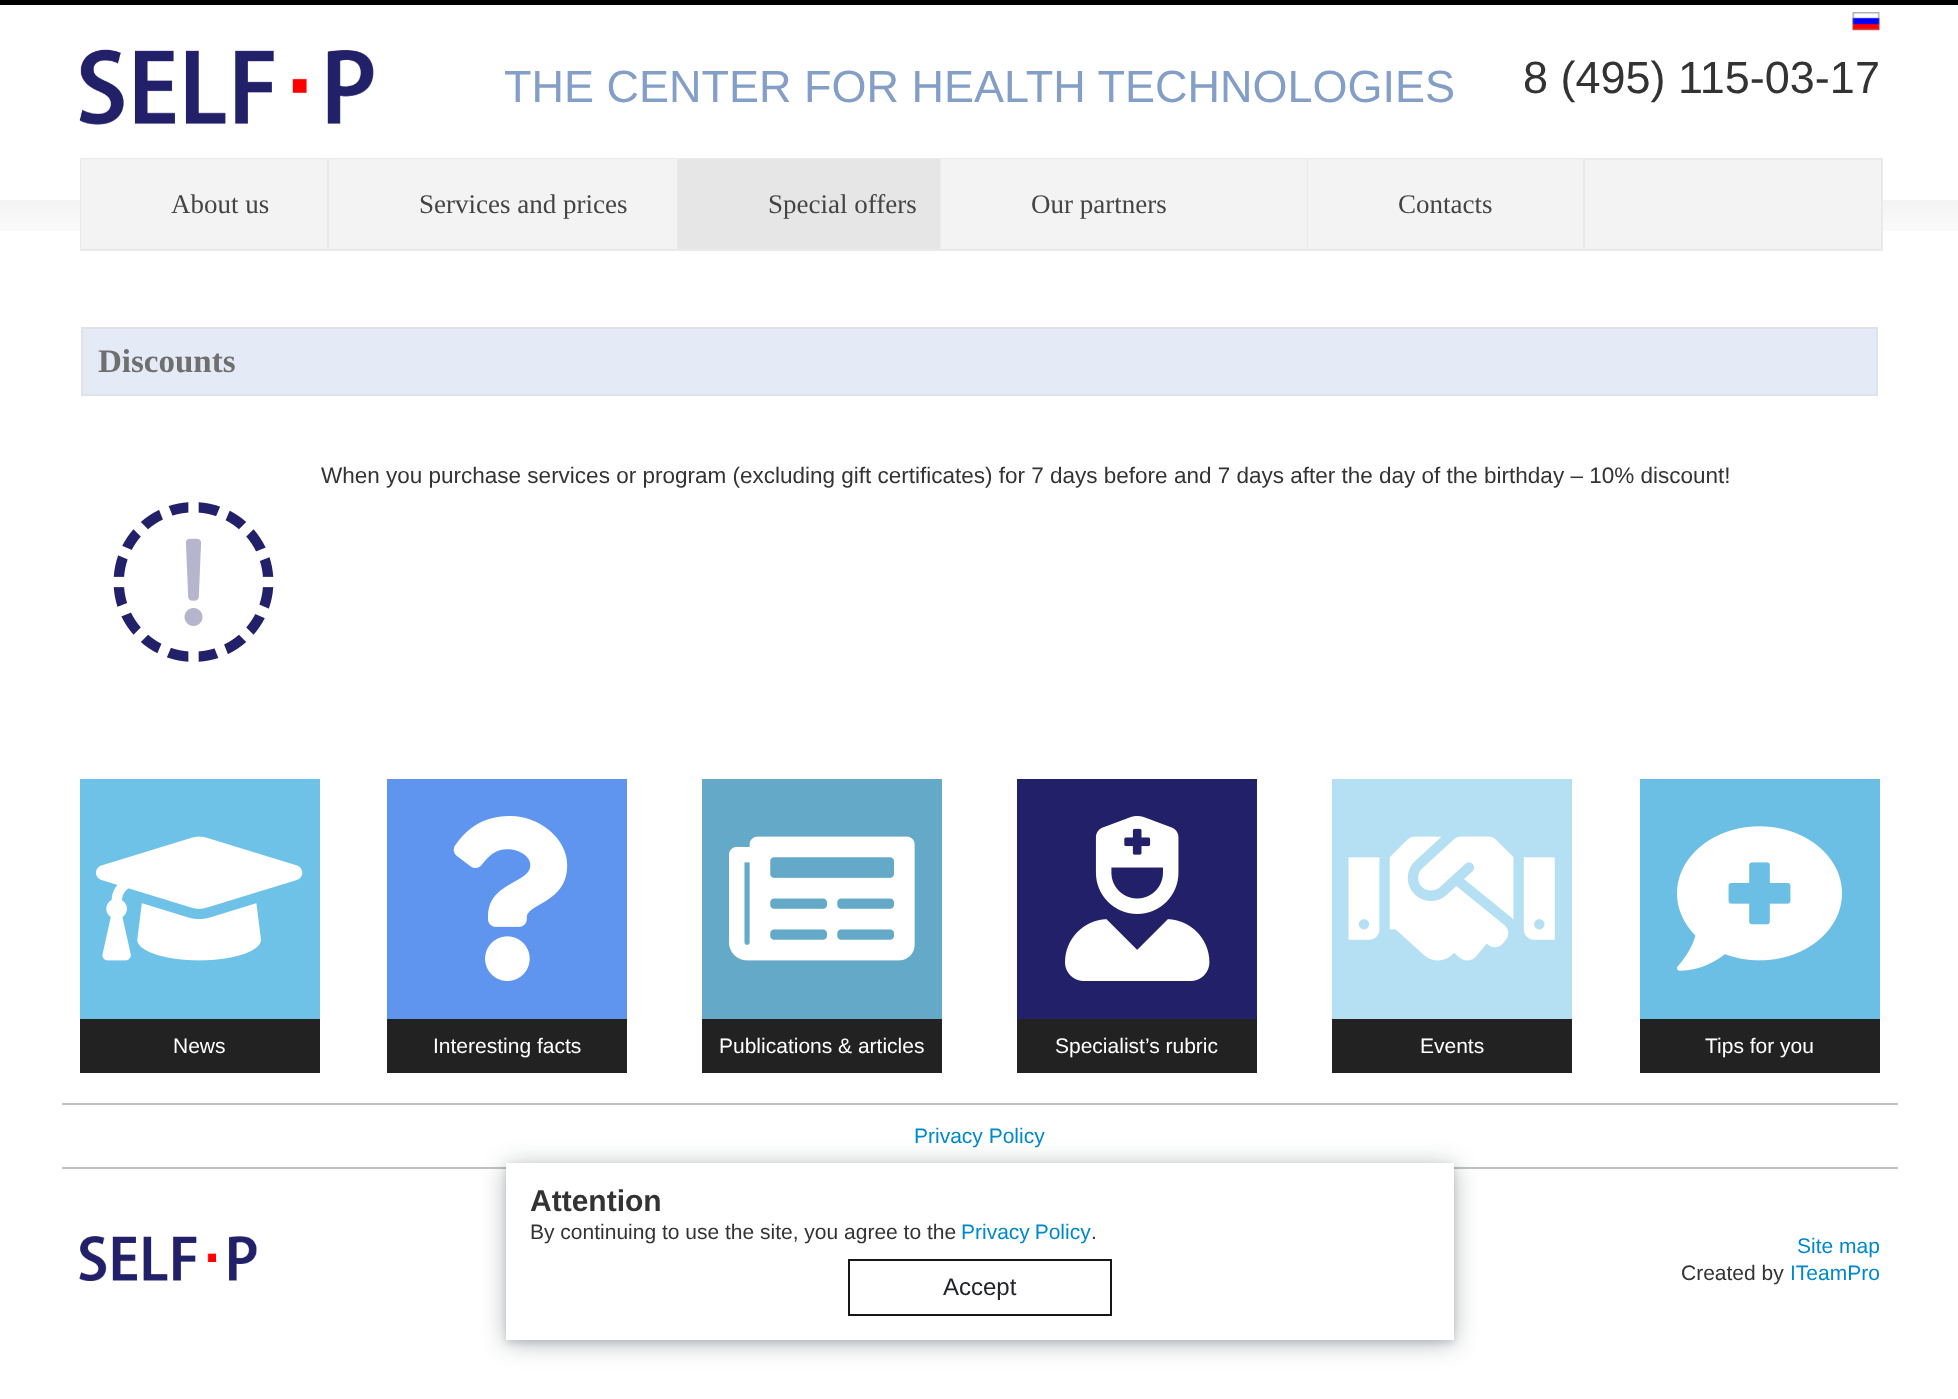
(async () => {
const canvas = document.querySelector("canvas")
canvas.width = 1958
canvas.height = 1399
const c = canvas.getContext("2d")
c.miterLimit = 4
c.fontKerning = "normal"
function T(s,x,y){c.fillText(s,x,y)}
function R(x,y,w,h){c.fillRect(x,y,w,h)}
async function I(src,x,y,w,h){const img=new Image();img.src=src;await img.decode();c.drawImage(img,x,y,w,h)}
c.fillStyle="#fff"
R(0,0,1958,1399)
c.fillStyle="#000"
R(0,0,1958,5)
await I("1.png",79,49,295,76)
c.font="45px Liberation Sans"
c.fillStyle="#839ec7"
T("THE CENTER FOR HEALTH TECHNOLOGIES",504,102)
await I("2.png",1852,12,28,19)
c.fillStyle="#333"
T("8 (495) 115-03-17",1523,93)
await I("3.png",0,200,1958,31)
c.fillStyle="#f3f3f3"
R(1585,160,296,89)
c.strokeStyle="#eaeaea"
c.lineWidth=2
c.strokeRect(81,159,1801,91)
R(81,159,246,90)
c.fillStyle="#eaeaea"
R(327,159,2,90)
c.font="27px Liberation Serif"
c.fillStyle="#444"
T("About us",171,213)
c.fillStyle="#f3f3f3"
R(329,159,348,90)
c.fillStyle="#eaeaea"
R(677,159,1,90)
c.fillStyle="#444"
T("Services and prices",419,213)
c.fillStyle="#e6e6e6"
R(678,159,261,90)
c.fillStyle="#eaeaea"
R(939,159,2,90)
c.fillStyle="#444"
T("Special offers",768,213)
c.fillStyle="#f3f3f3"
R(941,159,366,90)
c.fillStyle="#eaeaea"
R(1307,159,1,90)
c.fillStyle="#444"
T("Our partners",1031,213)
c.fillStyle="#f3f3f3"
R(1308,159,275,90)
c.fillStyle="#eaeaea"
R(1583,159,2,90)
c.fillStyle="#444"
T("Contacts",1398,213)
c.fillStyle="#e4eaf6"
c.beginPath()
c.rect(82,328,1795,67)
c.fill()
c.strokeStyle="#dee2ec"
c.stroke()
c.font="bold 33px Liberation Serif"
c.fillStyle="#6f6f70"
T("Discounts",98,372)
c.font="22.5px Liberation Sans"
c.fillStyle="#333"
T("When you purchase services or program (excluding gift certificates) for 7 days before and 7 days after the day of the birthday – 10% discount!",321,483)
await I("4.png",113,502,161,160)
c.fillStyle="#6ec2e7"
R(80,779,240,240)
await I("5.png",96,836,207,125)
c.fillStyle="#222"
R(80,1019,240,54)
c.font="21px Liberation Sans"
c.fillStyle="#fff"
T("News",173,1053)
c.fillStyle="#5f95ee"
R(387,779,240,240)
await I("6.png",453,816,115,165)
c.fillStyle="#222"
R(387,1019,240,54)
c.fillStyle="#fff"
T("Interesting facts",433,1053)
c.fillStyle="#64a9c7"
R(702,779,240,240)
await I("7.png",729,836,186,125)
c.fillStyle="#222"
R(702,1019,240,54)
c.fillStyle="#fff"
T("Publications & articles",719,1053)
c.fillStyle="#222069"
R(1017,779,240,240)
await I("8.png",1065,816,145,165)
c.fillStyle="#222"
R(1017,1019,240,54)
c.fillStyle="#fff"
T("Specialist’s rubric",1055,1053)
c.fillStyle="#b5e0f3"
R(1332,779,240,240)
await I("9.png",1348,836,207,125)
c.fillStyle="#222"
R(1332,1019,240,54)
c.fillStyle="#fff"
T("Events",1420,1053)
c.fillStyle="#6bbfe4"
R(1640,779,240,240)
await I("10.png",1677,826,165,145)
c.fillStyle="#222"
R(1640,1019,240,54)
c.fillStyle="#fff"
T("Tips for you",1705,1053)
c.fillStyle="#c0c0c0"
R(62,1103,1836,2)
R(62,1167,1836,2)
c.fillStyle="#08c"
T("Privacy Policy",914,1143)
c.fillStyle="#0e1e2552"
c.filter="blur(12px)"
c.beginPath()
c.rect(506,1166,948,177)
c.fill()
c.filter="none"
c.fillStyle="#0e1e251f"
c.filter="blur(3px)"
c.beginPath()
c.rect(506,1166,948,177)
c.fill()
c.filter="none"
c.fillStyle="#fff"
R(506,1163,948,177)
c.font="bold 30px Liberation Sans"
c.fillStyle="#333"
T("Attention",530,1211)
c.font="21px Liberation Sans"
T("By continuing to use the site, you agree to the",530,1239)
c.wordSpacing="-1px"
c.fillStyle="#08c"
T("Privacy Policy",961,1239)
c.wordSpacing="0px"
c.fillStyle="#333"
T(".",1091,1239)
c.strokeStyle="#161616"
c.strokeRect(849,1260,262,55)
c.font="24px Liberation Sans"
c.fillStyle="#212529"
T("Accept",943,1295)
await I("11.png",79,1236,178,45)
c.font="21px Liberation Sans"
c.fillStyle="#08c"
T("Site map",1797,1253)
c.fillStyle="#333"
T("Created by",1681,1280)
c.fillStyle="#08c"
T("ITeamPro",1790,1280)
})()
